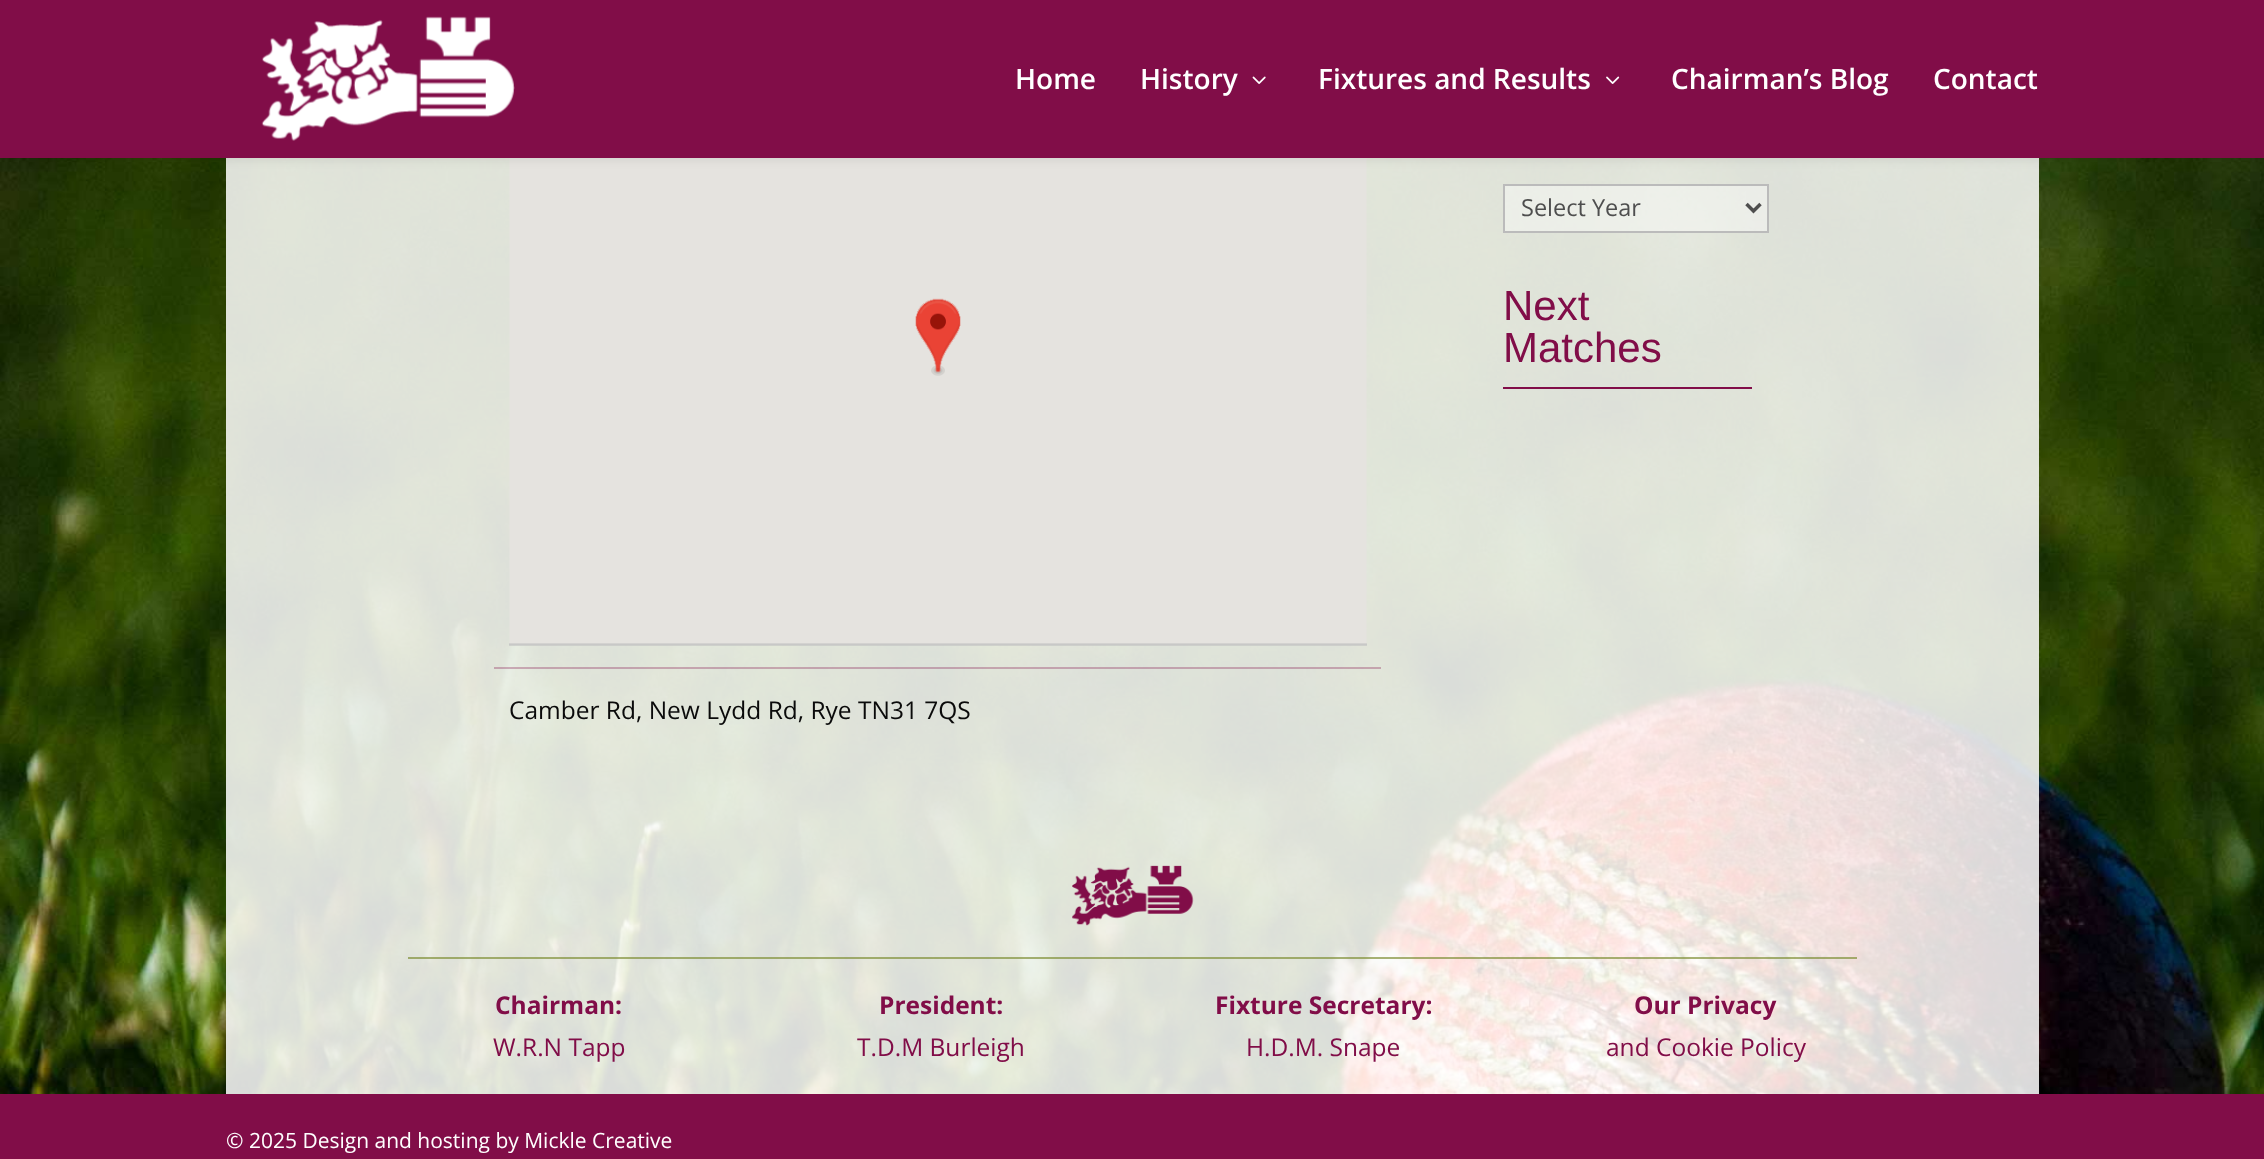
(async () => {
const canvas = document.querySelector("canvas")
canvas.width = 2264
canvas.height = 1159
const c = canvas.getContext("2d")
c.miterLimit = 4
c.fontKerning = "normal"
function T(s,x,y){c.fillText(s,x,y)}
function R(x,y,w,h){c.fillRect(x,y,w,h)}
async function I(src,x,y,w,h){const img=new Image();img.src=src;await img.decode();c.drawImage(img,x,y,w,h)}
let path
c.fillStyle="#fff"
R(0,0,2264,1159)
await I("1.png",0,158,2264,936)
c.fillStyle="#ffffffd9"
R(226,158,1813,659)
await I("5.png",509,158,858,488)
c.fillStyle="#0000001a"
c.filter="blur(6px)"
c.beginPath()
c.rect(0,0,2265,158)
c.fill()
c.filter="none"
c.fillStyle="#810d48"
R(0,0,2264,158)
await I("2.png",261,16,254,125)
c.font="600 28px Open Sans"
c.fillStyle="#fff"
T("Home",1015,89)
T("History",1140,89)
await I("3.png",1252,76,14,8)
T("Fixtures and Results",1318,89)
await I("4.png",1606,76,14,8)
T("Chairman’s Blog",1671,89)
T("Contact",1933,89)
c.fillStyle="#ffffff66"
c.beginPath()
c.rect(1504,185,264,47)
c.fill()
c.strokeStyle="#bbb"
c.lineWidth=2
c.stroke()
path = new Path2D("M1746.5 204l7 7l7-7")
c.strokeStyle="#4e4e4e"
c.lineWidth=3.5
c.stroke(path)
c.font="23.5px Open Sans"
c.fillStyle="#4e4e4e"
T("Select Year",1521,216)
c.fillStyle="#810d48"
R(1503,387,249,2)
c.font="42px Liberation Sans"
T("Next",1503,320)
T("Matches",1503,362)
c.fillStyle="#810d484d"
R(494,667,887,2)
await I("6.png",915,298,46,78)
c.font="24.5px Open Sans"
c.fillStyle="#0a0a0a"
T("Camber Rd, New Lydd Rd, Rye TN31 7QS",509,719)
c.fillStyle="#ffffffd9"
R(226,817,1813,277)
c.fillStyle="#809037b0"
R(408,957,1449,2)
await I("7.png",1072,865,122,61)
c.font="bold 24.5px Open Sans"
c.fillStyle="#810d48"
T("Chairman:",495,1014)
c.font="24.5px Open Sans"
T("W.R.N Tapp",493,1056)
c.font="bold 24.5px Open Sans"
T("President:",879,1014)
c.font="24.5px Open Sans"
T("T.D.M Burleigh",857,1056)
c.font="bold 24.5px Open Sans"
T("Fixture Secretary:",1215,1014)
c.font="24.5px Open Sans"
T("H.D.M. Snape",1246,1056)
c.font="bold 24.5px Open Sans"
T("Our Privacy",1634,1014)
c.font="24.5px Open Sans"
T("and Cookie Policy",1606,1056)
R(0,1094,2264,65)
c.font="21px Open Sans"
c.fillStyle="#fff"
T("© 2025 Design and hosting by Mickle Creative",226,1148)
})()
